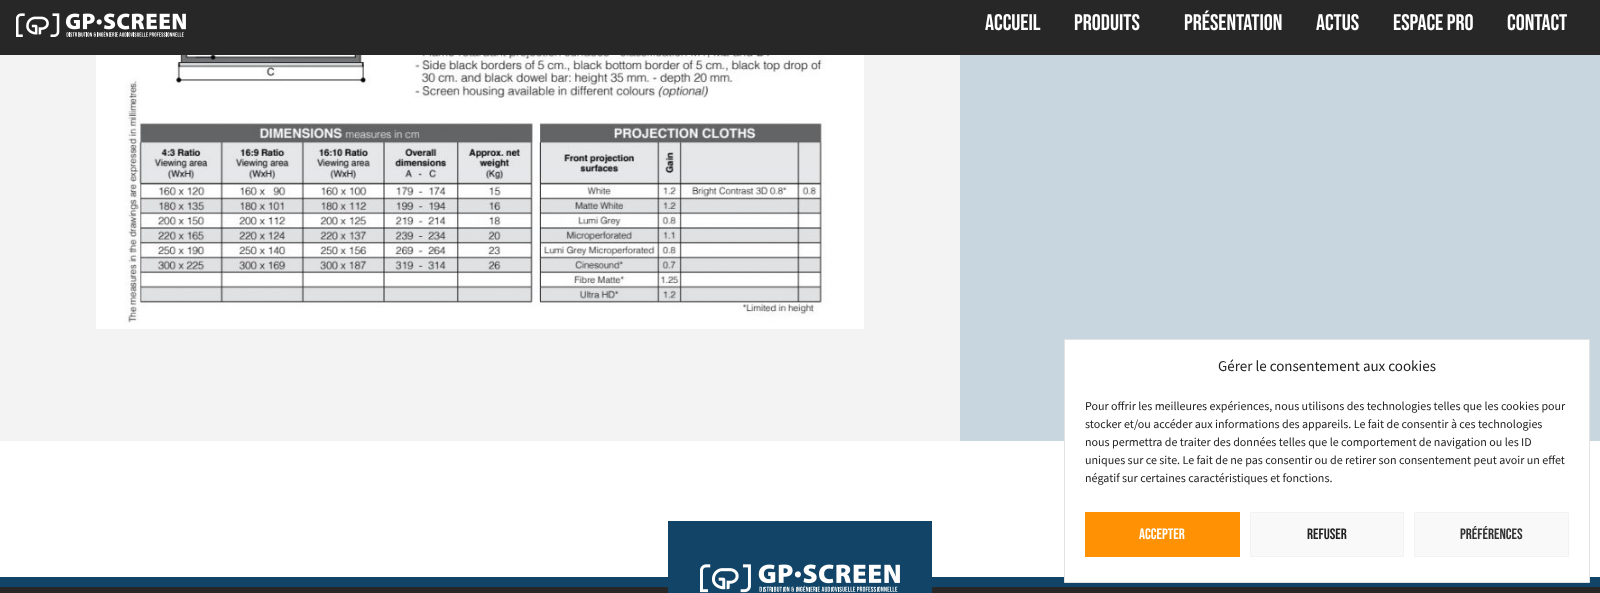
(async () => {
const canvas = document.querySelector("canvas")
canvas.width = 1600
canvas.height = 593
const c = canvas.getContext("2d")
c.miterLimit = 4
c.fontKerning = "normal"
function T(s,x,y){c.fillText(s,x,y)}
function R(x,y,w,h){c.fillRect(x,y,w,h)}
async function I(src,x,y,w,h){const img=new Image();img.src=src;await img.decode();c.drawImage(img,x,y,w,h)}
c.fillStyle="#fff"
R(0,0,1600,593)
c.fillStyle="#272727"
R(0,0,1600,55)
await I("1.png",16,13,170,24)
c.font="22.5px Bebas Neue"
c.fillStyle="#fff"
T("Accueil",985,30)
T("Produits",1074,30)
T("Présentation",1184,30)
T("Actus",1316,30)
T("Espace Pro",1393,30)
T("Contact",1507,30)
c.fillStyle="#f3f3f3"
R(0,55,960,386)
await I("2.png",96,55,768,274)
c.fillStyle="#c8d6df"
R(960,55,640,386)
c.fillStyle="#272727"
R(0,587,1600,6)
c.fillStyle="#146"
R(0,577,1600,10)
R(668,521,264,72)
await I("3.png",700,564,200,29)
c.fillStyle="#fff"
c.beginPath()
c.rect(1064.5,339.5,525,243)
c.fill()
c.strokeStyle="#e2e2e2"
c.stroke()
c.font="15px Source Sans Pro"
c.fillStyle="#222"
T("Gérer le consentement aux cookies",1218,371)
c.font="12px Source Sans Pro"
T("Pour offrir les meilleures expériences, nous utilisons des technologies telles que les cookies pour",1085,410)
T("stocker et/ou accéder aux informations des appareils. Le fait de consentir à ces technologies",1085,428)
T("nous permettra de traiter des données telles que le comportement de navigation ou les ID",1085,446)
T("uniques sur ce site. Le fait de ne pas consentir ou de retirer son consentement peut avoir un effet",1085,464)
T("négatif sur certaines caractéristiques et fonctions.",1085,482)
c.fillStyle="#ff9204"
R(1085,512,155,45)
c.font="15px Bebas Neue"
c.fillStyle="#fff"
T("Accepter",1139,539)
c.fillStyle="#f9f9f9"
c.beginPath()
c.rect(1250.5,512.5,153,44)
c.fill()
c.strokeStyle="#f2f2f2"
c.stroke()
c.fillStyle="#222"
T("Refuser",1307,539)
c.fillStyle="#f9f9f9"
c.beginPath()
c.rect(1414.5,512.5,154,44)
c.fill()
c.stroke()
c.fillStyle="#333"
T("Préférences",1460,539)
})()
